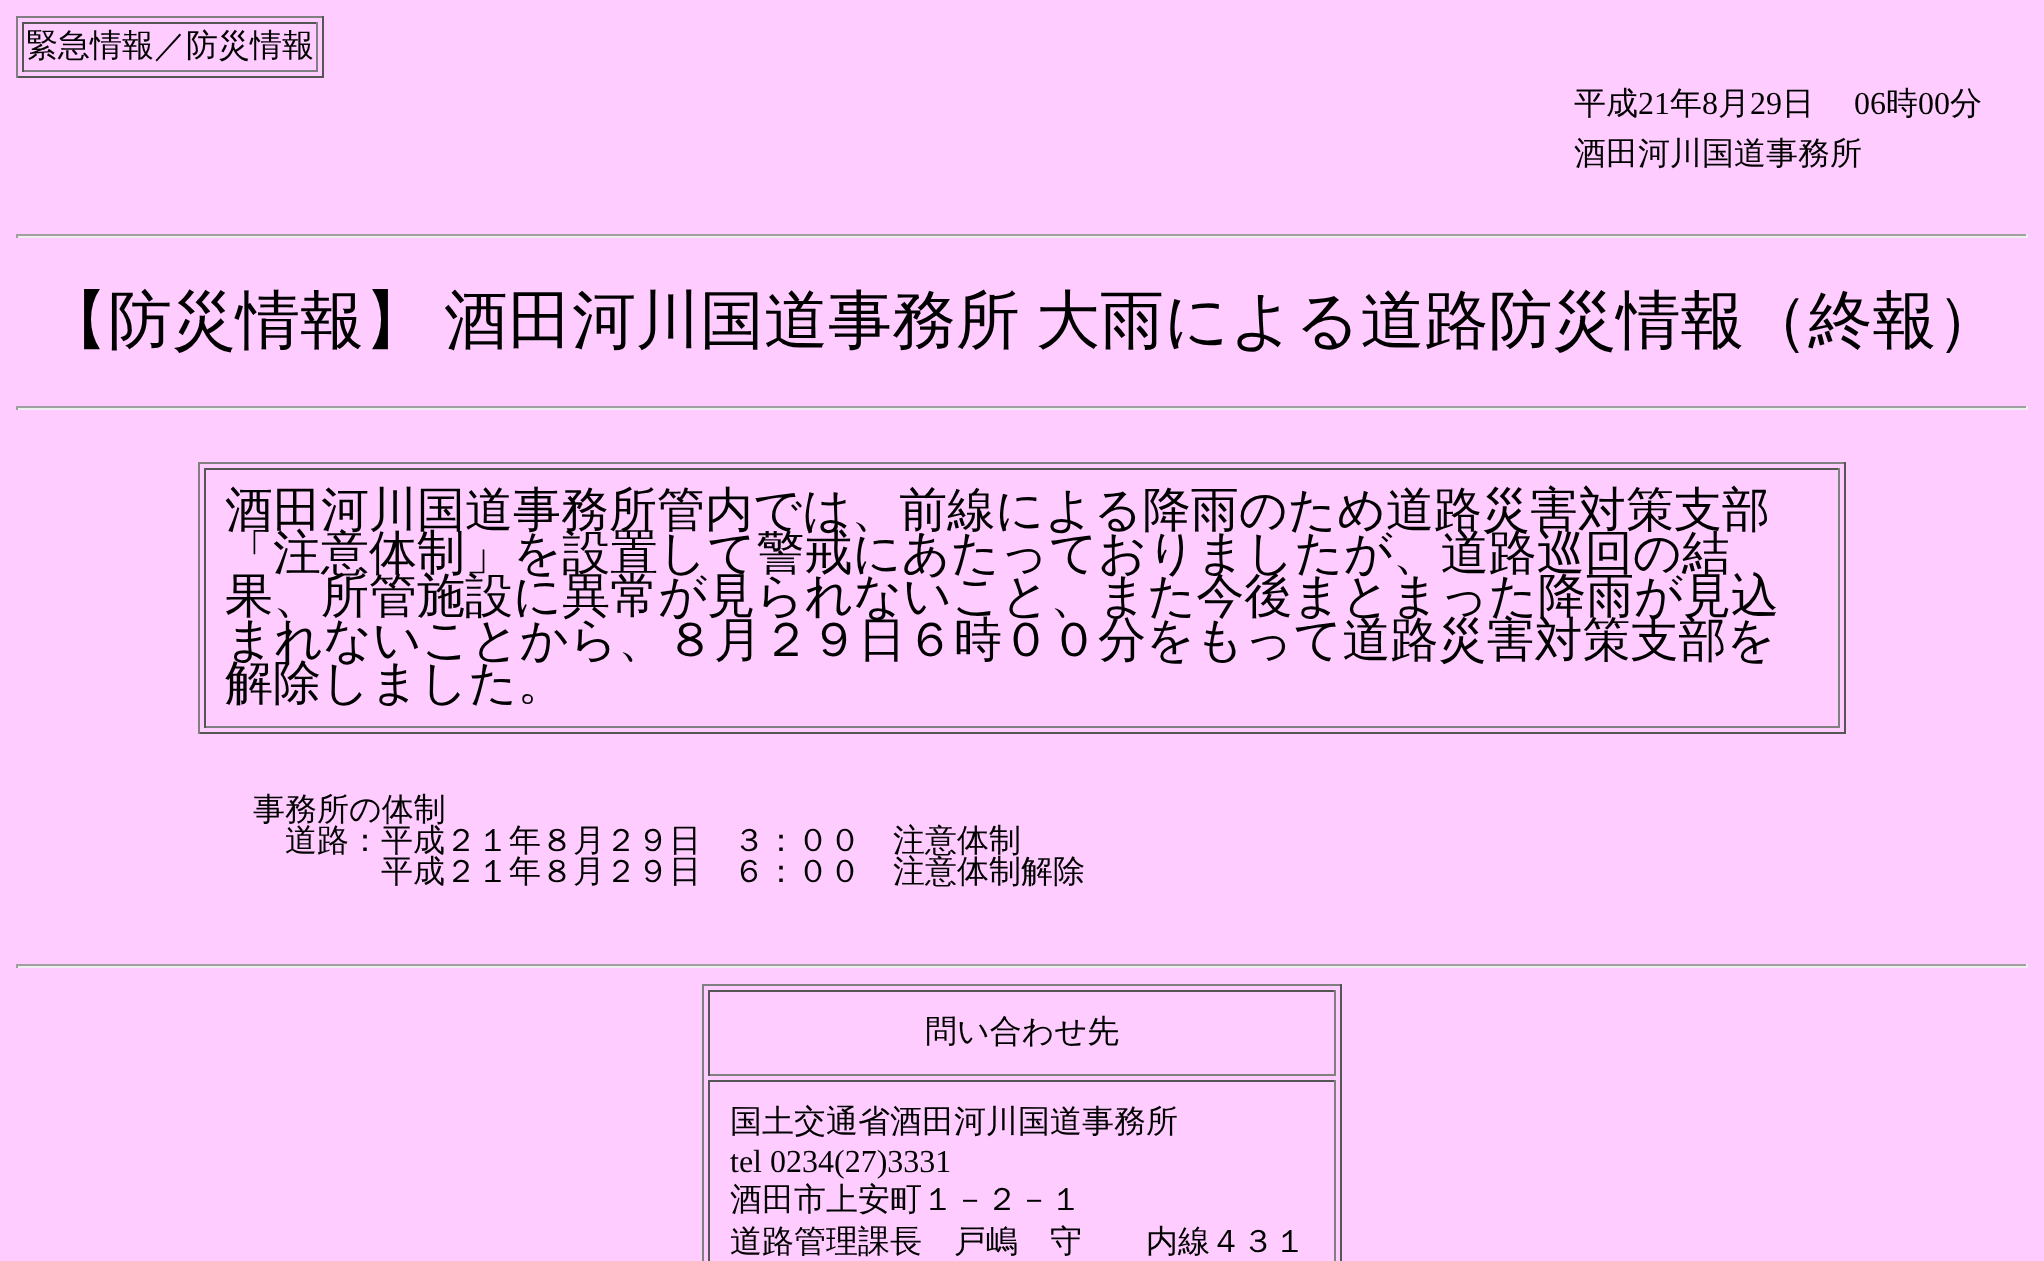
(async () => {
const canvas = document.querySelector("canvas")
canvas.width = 2044
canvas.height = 1261
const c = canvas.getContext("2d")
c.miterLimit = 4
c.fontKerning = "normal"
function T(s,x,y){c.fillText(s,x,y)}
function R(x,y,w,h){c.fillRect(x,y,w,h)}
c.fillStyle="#fcf"
R(0,0,2044,1261)
c.fillStyle="#808080"
R(16,16,308,2)
c.fillStyle="#555"
R(322,16,2,62)
R(16,76,308,2)
c.fillStyle="#808080"
R(16,16,2,62)
c.fillStyle="#555"
R(22,22,296,2)
c.fillStyle="#808080"
R(316,22,2,50)
R(22,70,296,2)
c.fillStyle="#555"
R(22,22,2,50)
c.font="500 32px WenQuanYi Zen Hei"
c.fillStyle="#000"
T("緊急情報／防災情報",26,56)
T("平成",1574,114)
c.font="32px Liberation Serif"
T("21",1638,114)
c.font="500 32px WenQuanYi Zen Hei"
T("年",1670,114)
c.font="32px Liberation Serif"
T("8",1702,114)
c.font="500 32px WenQuanYi Zen Hei"
T("月",1718,114)
c.font="32px Liberation Serif"
T("29",1750,114)
c.font="500 32px WenQuanYi Zen Hei"
T("日",1782,114)
c.font="32px Liberation Serif"
T("06",1854,114)
c.font="500 32px WenQuanYi Zen Hei"
T("時",1886,114)
c.font="32px Liberation Serif"
T("00",1918,114)
c.font="500 32px WenQuanYi Zen Hei"
T("分",1950,114)
T("酒田河川国道事務所",1574,164)
c.fillStyle="#9f9f9f"
R(16,234,2012,2)
c.fillStyle="#eee"
R(2026,234,2,4)
R(16,236,2012,2)
c.fillStyle="#9f9f9f"
R(16,234,2,4)
c.font="500 64px WenQuanYi Zen Hei"
c.fillStyle="#000"
T("【防災情報】",44,342)
T("酒田河川国道事務所",444,342)
T("大雨による道路防災情報（終報）",1036,342)
c.fillStyle="#9f9f9f"
R(16,406,2012,2)
c.fillStyle="#eee"
R(2026,406,2,4)
R(16,408,2012,2)
c.fillStyle="#9f9f9f"
R(16,406,2,4)
c.fillStyle="#808080"
R(198,462,1648,2)
c.fillStyle="#555"
R(1844,462,2,272)
R(198,732,1648,2)
c.fillStyle="#808080"
R(198,462,2,272)
c.fillStyle="#555"
R(204,468,1636,2)
c.fillStyle="#808080"
R(1838,468,2,260)
R(204,726,1636,2)
c.fillStyle="#555"
R(204,468,2,260)
c.font="500 48px WenQuanYi Zen Hei"
c.fillStyle="#000"
T("酒田河川国道事務所管内では、前線による降雨のため道路災害対策支部",225,526)
T("「注意体制」を設置して警戒にあたっておりましたが、道路巡回の結",225,569)
T("果、所管施設に異常が見られないこと、また今後まとまった降雨が見込",225,612)
T("まれないことから、８月２９日６時００分をもって道路災害対策支部を",225,656)
T("解除しました。",225,699)
c.font="500 32px WenQuanYi Zen Hei"
T("事務所の体制",253,820)
T("道路：平成２１年８月２９日",285,851)
T("３：００",733,851)
T("注意体制",893,851)
T("平成２１年８月２９日",381,882)
T("６：００",733,882)
T("注意体制解除",893,882)
c.fillStyle="#9f9f9f"
R(16,964,2012,2)
c.fillStyle="#eee"
R(2026,964,2,4)
R(16,966,2012,2)
c.fillStyle="#9f9f9f"
R(16,964,2,4)
c.fillStyle="#808080"
R(702,984,640,2)
c.fillStyle="#555"
R(1340,984,2,277)
c.fillStyle="#808080"
R(702,984,2,277)
c.fillStyle="#555"
R(708,990,628,2)
c.fillStyle="#808080"
R(1334,990,2,86)
R(708,1074,628,2)
c.fillStyle="#555"
R(708,990,2,86)
c.fillStyle="#000"
T("問い合わせ先",925,1042)
c.fillStyle="#555"
R(708,1080,628,2)
c.fillStyle="#808080"
R(1334,1080,2,181)
c.fillStyle="#555"
R(708,1080,2,181)
c.fillStyle="#000"
T("国土交通省酒田河川国道事務所",730,1132)
c.font="32px Liberation Serif"
T("tel 0234(27)3331",730,1172)
c.font="500 32px WenQuanYi Zen Hei"
T("酒田市上安町１－２－１",730,1210)
T("道路管理課長",730,1252)
T("戸嶋",954,1252)
T("守",1050,1252)
T("内線４３１",1146,1252)
})()
